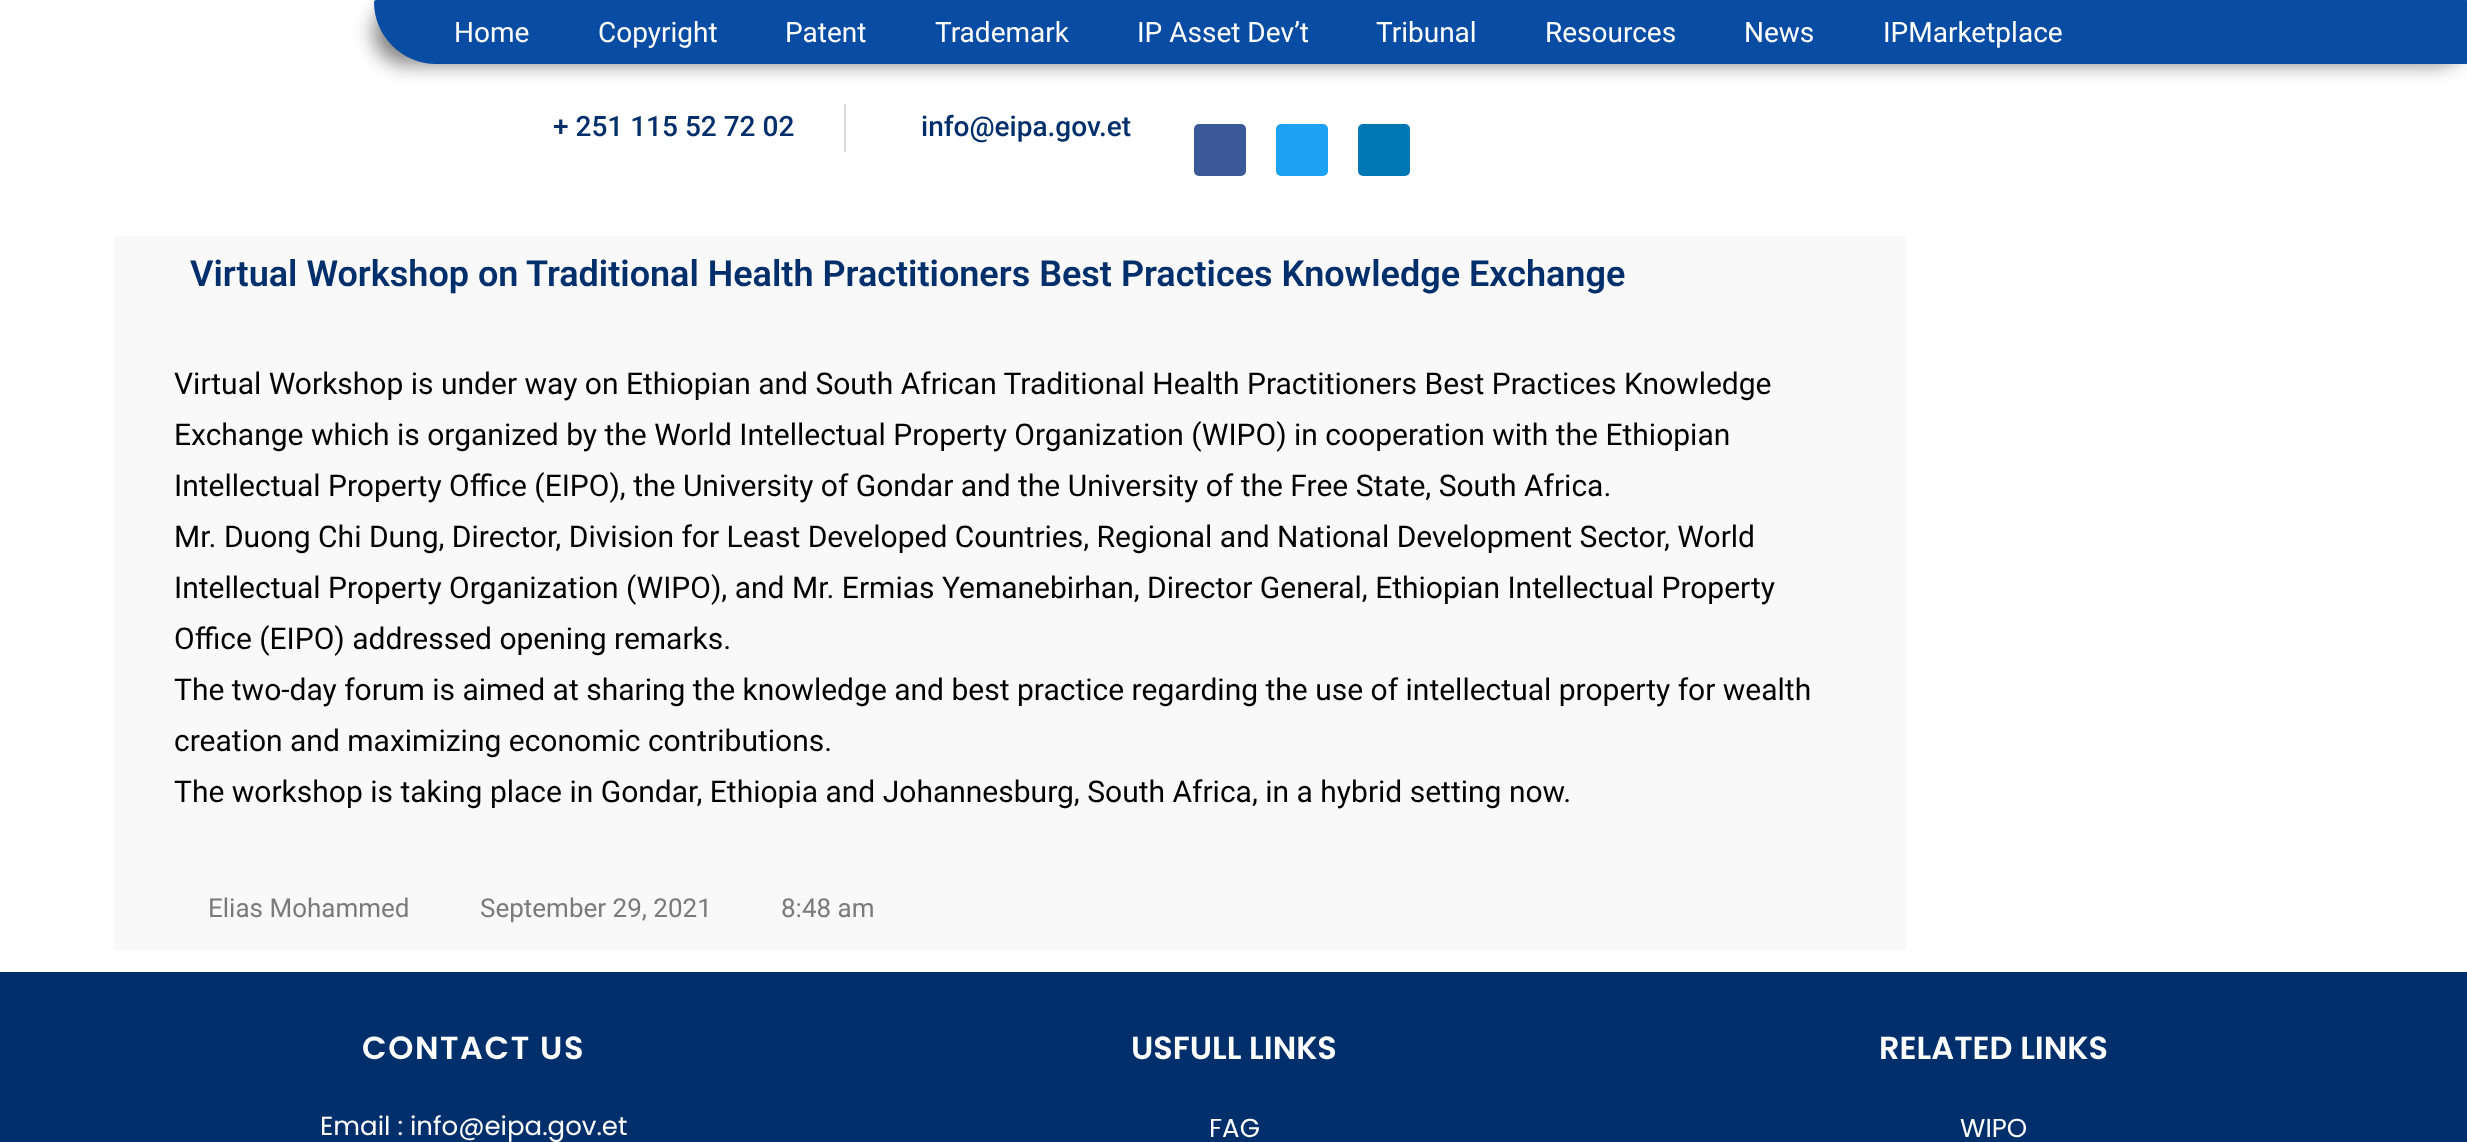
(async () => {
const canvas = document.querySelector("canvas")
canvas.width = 2467
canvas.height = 1142
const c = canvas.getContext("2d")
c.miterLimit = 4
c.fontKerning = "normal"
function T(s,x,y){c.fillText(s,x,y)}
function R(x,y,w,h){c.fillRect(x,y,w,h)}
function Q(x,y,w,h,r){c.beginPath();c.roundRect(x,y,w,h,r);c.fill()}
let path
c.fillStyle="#fff"
R(0,0,2467,1142)
c.fillStyle="#00000080"
c.filter="blur(10px)"
c.beginPath()
c.roundRect(374,0,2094,64,62)
c.fill()
c.filter="none"
c.fillStyle="#084ca4"
path = new Path2D("M376 0h2090c1 0 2 1 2 2v60c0 1-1 2-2 2h-2030c-34 0-62-28-62-62c0-1 1-2 2-2z")
c.fill(path)
c.font="28px Roboto"
c.fillStyle="#fff"
T("Home",454,42)
T("Copyright",598,42)
T("Patent",785,42)
T("Trademark",935,42)
T("IP Asset Dev’t",1137,42)
T("Tribunal",1376,42)
T("Resources",1545,42)
T("News",1744,42)
T("IPMarketplace",1883,42)
c.font="500 28px Roboto"
c.fillStyle="#002f6c"
T("+ 251 115 52 72 02",553,136)
c.fillStyle="#ddd"
R(844,104,2,48)
c.fillStyle="#002f6c"
T("info@eipa.gov.et",921,136)
c.fillStyle="#3b5998"
Q(1194,124,52,52,5)
c.fillStyle="#1da1f2"
Q(1276,124,52,52,5)
c.fillStyle="#0077b5"
Q(1358,124,52,52,5)
c.fillStyle="#f9f9f9"
R(114,236,1792,714)
c.font="600 36px Roboto"
c.fillStyle="#002f6c"
T("Virtual Workshop on",190,286)
T("Traditional Health Practitioners Best Practices Knowledge Exchange",526,286)
c.font="30px Roboto"
c.fillStyle="#000"
T("Virtual Workshop is under way on Ethiopian and South African Traditional Health Practitioners Best Practices Knowledge",174,394)
T("Exchange which is organized by the World Intellectual Property Organization (WIPO) in cooperation with the Ethiopian",174,445)
T("Intellectual Property Office (EIPO), the University of Gondar and the University of the Free State, South Africa.",174,496)
T("Mr. Duong Chi Dung, Director, Division for Least Developed Countries, Regional and National Development Sector, World",174,547)
T("Intellectual Property Organization (WIPO), and Mr. Ermias Yemanebirhan, Director General, Ethiopian Intellectual Property",174,598)
T("Office (EIPO) addressed opening remarks.",174,649)
T("The two-day forum is aimed at sharing the knowledge and best practice regarding the use of intellectual property for wealth",174,700)
T("creation and maximizing economic contributions.",174,751)
T("The workshop is taking place in Gondar, Ethiopia and Johannesburg, South Africa, in a hybrid setting now.",174,802)
c.font="26px Roboto"
c.fillStyle="#7a7a7a"
T("Elias Mohammed",208,917)
T("September 29, 2021",480,917)
T("8:48 am",781,917)
c.fillStyle="#002f6c"
R(0,972,2467,170)
c.letterSpacing="1.6px"
c.font="600 32px Poppins"
c.fillStyle="#fff"
T("CONTACT US",362,1059)
c.letterSpacing="0px"
c.font="26px Poppins"
T("Email : info@eipa.gov.et",320,1135)
c.font="600 32px Poppins"
T("USFULL LINKS",1131,1059)
c.font="26px Poppins"
T("FAG",1209,1137)
c.font="600 32px Poppins"
T("RELATED LINKS",1879,1059)
c.font="26px Poppins"
T("WIPO",1960,1137)
})()
